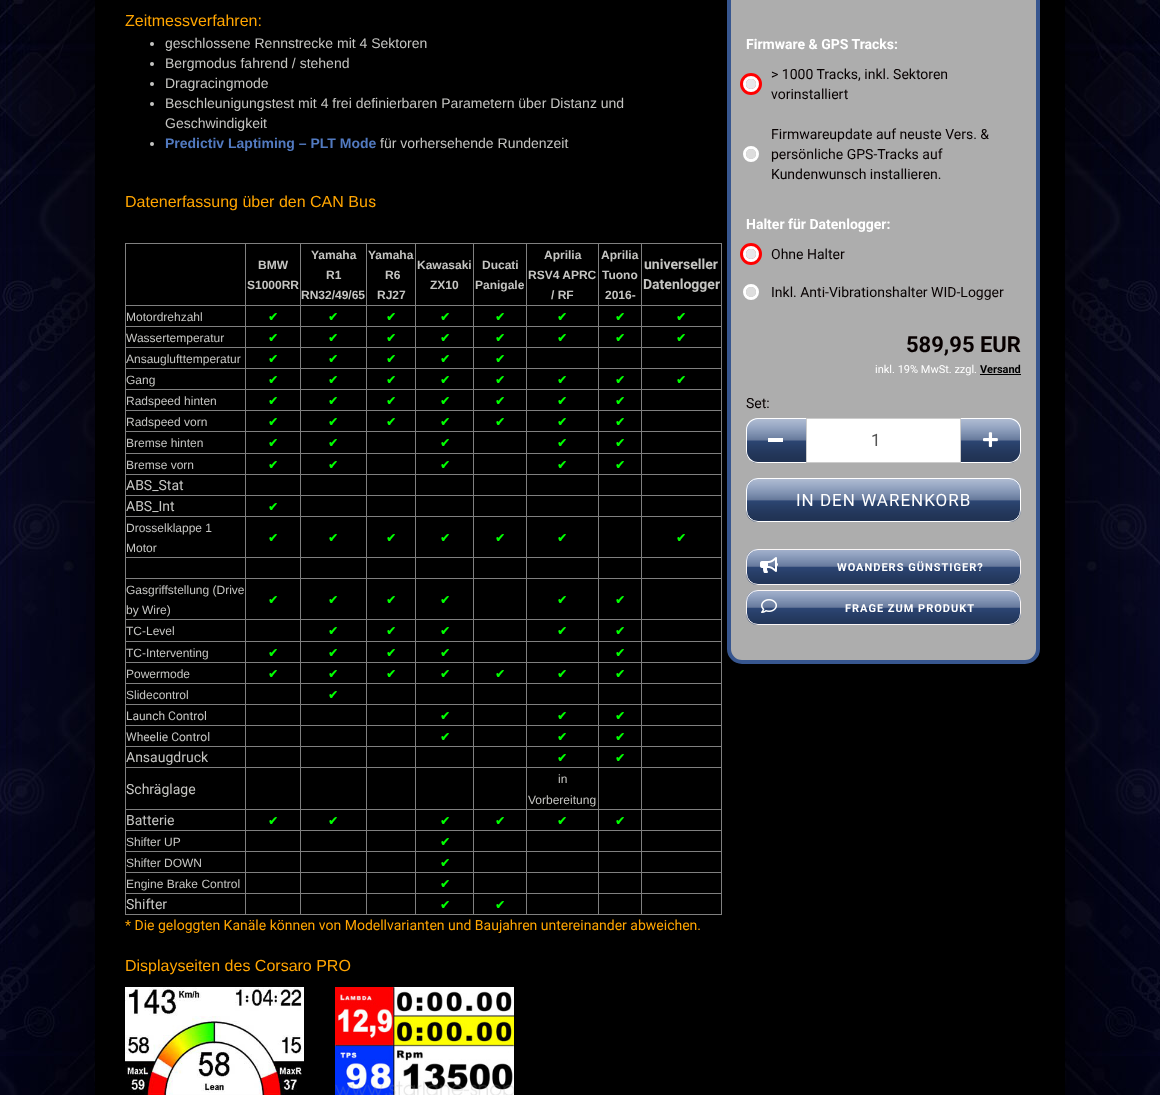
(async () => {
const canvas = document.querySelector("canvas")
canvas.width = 1160
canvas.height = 1095
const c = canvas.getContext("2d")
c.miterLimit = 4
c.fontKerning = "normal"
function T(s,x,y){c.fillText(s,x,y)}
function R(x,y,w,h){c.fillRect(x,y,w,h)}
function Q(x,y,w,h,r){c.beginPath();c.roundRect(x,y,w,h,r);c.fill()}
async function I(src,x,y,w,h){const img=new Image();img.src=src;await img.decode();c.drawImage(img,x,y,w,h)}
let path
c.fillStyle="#fff"
R(0,0,1160,1095)
await I("1.png",0,0,1160,1095)
c.fillStyle="#000"
R(95,0,970,1095)
c.font="16px Liberation Sans"
c.fillStyle="#ffa500"
T("Zeitmessverfahren:",125,26)
c.fillStyle="#c5c5c2"
c.beginPath()
c.arc(152,44,2,0,7)
c.fill()
c.font="14px Liberation Sans"
T("geschlossene Rennstrecke mit 4 Sektoren",165,48)
c.beginPath()
c.arc(152,64,2,0,7)
c.fill()
T("Bergmodus fahrend / stehend",165,68)
c.beginPath()
c.arc(152,84,2,0,7)
c.fill()
T("Dragracingmode",165,88)
c.beginPath()
c.arc(152,104,2,0,7)
c.fill()
T("Beschleunigungstest mit 4 frei definierbaren Parametern über Distanz und",165,108)
T("Geschwindigkeit",165,128)
c.beginPath()
c.arc(152,144,2,0,7)
c.fill()
c.font="bold 14px Liberation Sans"
c.fillStyle="#527ac0"
T("Predictiv Laptiming – PLT Mode",165,148)
c.font="14px Liberation Sans"
c.fillStyle="#c5c5c2"
T("für vorhersehende Rundenzeit",380,148)
c.font="16px Liberation Sans"
c.fillStyle="#ffa500"
T("Datenerfassung über den CAN Bu",125,207)
c.font="16px Roboto"
T("s",368,207)
c.fillStyle="#808080"
R(125,243,597,1)
R(721,243,1,672)
R(125,914,597,1)
R(125,243,1,672)
R(641,305,81,1)
R(641,326,81,1)
R(641,347,81,1)
R(641,368,81,1)
R(641,389,81,1)
R(641,410,81,1)
R(641,431,81,1)
R(641,453,81,1)
R(641,474,81,1)
R(641,495,81,1)
R(641,516,81,1)
R(641,557,81,1)
R(641,578,81,1)
R(641,619,81,1)
R(641,641,81,1)
R(641,662,81,1)
R(641,683,81,1)
R(641,704,81,1)
R(641,725,81,1)
R(641,746,81,1)
R(641,767,81,1)
R(641,809,81,1)
R(641,830,81,1)
R(641,851,81,1)
R(641,872,81,1)
R(641,893,81,1)
R(641,893,1,22)
R(598,893,44,1)
R(641,872,1,22)
R(598,872,44,1)
R(641,851,1,22)
R(598,851,44,1)
R(641,830,1,22)
R(598,830,44,1)
R(641,809,1,22)
R(598,809,44,1)
R(641,767,1,43)
R(598,767,44,1)
R(641,746,1,22)
R(598,746,44,1)
R(641,725,1,22)
R(598,725,44,1)
R(641,704,1,22)
R(598,704,44,1)
R(641,683,1,22)
R(598,683,44,1)
R(641,662,1,22)
R(598,662,44,1)
R(641,641,1,22)
R(598,641,44,1)
R(641,619,1,23)
R(598,619,44,1)
R(641,578,1,42)
R(598,578,44,1)
R(641,557,1,22)
R(598,557,44,1)
R(641,516,1,42)
R(598,516,44,1)
R(641,495,1,22)
R(598,495,44,1)
R(641,474,1,22)
R(598,474,44,1)
R(641,453,1,22)
R(598,453,44,1)
R(641,431,1,23)
R(598,431,44,1)
R(641,410,1,22)
R(598,410,44,1)
R(641,389,1,22)
R(598,389,44,1)
R(641,368,1,22)
R(598,368,44,1)
R(641,347,1,22)
R(598,347,44,1)
R(641,326,1,22)
R(598,326,44,1)
R(641,305,1,22)
R(598,305,44,1)
R(598,893,1,22)
R(526,893,73,1)
R(598,872,1,22)
R(526,872,73,1)
R(598,851,1,22)
R(526,851,73,1)
R(598,830,1,22)
R(526,830,73,1)
R(598,809,1,22)
R(526,809,73,1)
R(598,767,1,43)
R(526,767,73,1)
R(598,746,1,22)
R(526,746,73,1)
R(598,725,1,22)
R(526,725,73,1)
R(598,704,1,22)
R(526,704,73,1)
R(598,683,1,22)
R(526,683,73,1)
R(598,662,1,22)
R(526,662,73,1)
R(598,641,1,22)
R(526,641,73,1)
R(598,619,1,23)
R(526,619,73,1)
R(598,578,1,42)
R(526,578,73,1)
R(598,557,1,22)
R(526,557,73,1)
R(598,516,1,42)
R(526,516,73,1)
R(598,495,1,22)
R(526,495,73,1)
R(598,474,1,22)
R(526,474,73,1)
R(598,453,1,22)
R(526,453,73,1)
R(598,431,1,23)
R(526,431,73,1)
R(598,410,1,22)
R(526,410,73,1)
R(598,389,1,22)
R(526,389,73,1)
R(598,368,1,22)
R(526,368,73,1)
R(598,347,1,22)
R(526,347,73,1)
R(598,326,1,22)
R(526,326,73,1)
R(598,305,1,22)
R(526,305,73,1)
R(526,893,1,22)
R(473,893,54,1)
R(526,872,1,22)
R(473,872,54,1)
R(526,851,1,22)
R(473,851,54,1)
R(526,830,1,22)
R(473,830,54,1)
R(526,809,1,22)
R(473,809,54,1)
R(526,767,1,43)
R(473,767,54,1)
R(526,746,1,22)
R(473,746,54,1)
R(526,725,1,22)
R(473,725,54,1)
R(526,704,1,22)
R(473,704,54,1)
R(526,683,1,22)
R(473,683,54,1)
R(526,662,1,22)
R(473,662,54,1)
R(526,641,1,22)
R(473,641,54,1)
R(526,619,1,23)
R(473,619,54,1)
R(526,578,1,42)
R(473,578,54,1)
R(526,557,1,22)
R(473,557,54,1)
R(526,516,1,42)
R(473,516,54,1)
R(526,495,1,22)
R(473,495,54,1)
R(526,474,1,22)
R(473,474,54,1)
R(526,453,1,22)
R(473,453,54,1)
R(526,431,1,23)
R(473,431,54,1)
R(526,410,1,22)
R(473,410,54,1)
R(526,389,1,22)
R(473,389,54,1)
R(526,368,1,22)
R(473,368,54,1)
R(526,347,1,22)
R(473,347,54,1)
R(526,326,1,22)
R(473,326,54,1)
R(526,305,1,22)
R(473,305,54,1)
R(473,893,1,22)
R(415,893,59,1)
R(473,872,1,22)
R(415,872,59,1)
R(473,851,1,22)
R(415,851,59,1)
R(473,830,1,22)
R(415,830,59,1)
R(473,809,1,22)
R(415,809,59,1)
R(473,767,1,43)
R(415,767,59,1)
R(473,746,1,22)
R(415,746,59,1)
R(473,725,1,22)
R(415,725,59,1)
R(473,704,1,22)
R(415,704,59,1)
R(473,683,1,22)
R(415,683,59,1)
R(473,662,1,22)
R(415,662,59,1)
R(473,641,1,22)
R(415,641,59,1)
R(473,619,1,23)
R(415,619,59,1)
R(473,578,1,42)
R(415,578,59,1)
R(473,557,1,22)
R(415,557,59,1)
R(473,516,1,42)
R(415,516,59,1)
R(473,495,1,22)
R(415,495,59,1)
R(473,474,1,22)
R(415,474,59,1)
R(473,453,1,22)
R(415,453,59,1)
R(473,431,1,23)
R(415,431,59,1)
R(473,410,1,22)
R(415,410,59,1)
R(473,389,1,22)
R(415,389,59,1)
R(473,368,1,22)
R(415,368,59,1)
R(473,347,1,22)
R(415,347,59,1)
R(473,326,1,22)
R(415,326,59,1)
R(473,305,1,22)
R(415,305,59,1)
R(415,893,1,22)
R(366,893,50,1)
R(415,872,1,22)
R(366,872,50,1)
R(415,851,1,22)
R(366,851,50,1)
R(415,830,1,22)
R(366,830,50,1)
R(415,809,1,22)
R(366,809,50,1)
R(415,767,1,43)
R(366,767,50,1)
R(415,746,1,22)
R(366,746,50,1)
R(415,725,1,22)
R(366,725,50,1)
R(415,704,1,22)
R(366,704,50,1)
R(415,683,1,22)
R(366,683,50,1)
R(415,662,1,22)
R(366,662,50,1)
R(415,641,1,22)
R(366,641,50,1)
R(415,619,1,23)
R(366,619,50,1)
R(415,578,1,42)
R(366,578,50,1)
R(415,557,1,22)
R(366,557,50,1)
R(415,516,1,42)
R(366,516,50,1)
R(415,495,1,22)
R(366,495,50,1)
R(415,474,1,22)
R(366,474,50,1)
R(415,453,1,22)
R(366,453,50,1)
R(415,431,1,23)
R(366,431,50,1)
R(415,410,1,22)
R(366,410,50,1)
R(415,389,1,22)
R(366,389,50,1)
R(415,368,1,22)
R(366,368,50,1)
R(415,347,1,22)
R(366,347,50,1)
R(415,326,1,22)
R(366,326,50,1)
R(415,305,1,22)
R(366,305,50,1)
R(366,893,1,22)
R(300,893,67,1)
R(366,872,1,22)
R(300,872,67,1)
R(366,851,1,22)
R(300,851,67,1)
R(366,830,1,22)
R(300,830,67,1)
R(366,809,1,22)
R(300,809,67,1)
R(366,767,1,43)
R(300,767,67,1)
R(366,746,1,22)
R(300,746,67,1)
R(366,725,1,22)
R(300,725,67,1)
R(366,704,1,22)
R(300,704,67,1)
R(366,683,1,22)
R(300,683,67,1)
R(366,662,1,22)
R(300,662,67,1)
R(366,641,1,22)
R(300,641,67,1)
R(366,619,1,23)
R(300,619,67,1)
R(366,578,1,42)
R(300,578,67,1)
R(366,557,1,22)
R(300,557,67,1)
R(366,516,1,42)
R(300,516,67,1)
R(366,495,1,22)
R(300,495,67,1)
R(366,474,1,22)
R(300,474,67,1)
R(366,453,1,22)
R(300,453,67,1)
R(366,431,1,23)
R(300,431,67,1)
R(366,410,1,22)
R(300,410,67,1)
R(366,389,1,22)
R(300,389,67,1)
R(366,368,1,22)
R(300,368,67,1)
R(366,347,1,22)
R(300,347,67,1)
R(366,326,1,22)
R(300,326,67,1)
R(366,305,1,22)
R(300,305,67,1)
R(300,893,1,22)
R(245,893,56,1)
R(300,872,1,22)
R(245,872,56,1)
R(300,851,1,22)
R(245,851,56,1)
R(300,830,1,22)
R(245,830,56,1)
R(300,809,1,22)
R(245,809,56,1)
R(300,767,1,43)
R(245,767,56,1)
R(300,746,1,22)
R(245,746,56,1)
R(300,725,1,22)
R(245,725,56,1)
R(300,704,1,22)
R(245,704,56,1)
R(300,683,1,22)
R(245,683,56,1)
R(300,662,1,22)
R(245,662,56,1)
R(300,641,1,22)
R(245,641,56,1)
R(300,619,1,23)
R(245,619,56,1)
R(300,578,1,42)
R(245,578,56,1)
R(300,557,1,22)
R(245,557,56,1)
R(300,516,1,42)
R(245,516,56,1)
R(300,495,1,22)
R(245,495,56,1)
R(300,474,1,22)
R(245,474,56,1)
R(300,453,1,22)
R(245,453,56,1)
R(300,431,1,23)
R(245,431,56,1)
R(300,410,1,22)
R(245,410,56,1)
R(300,389,1,22)
R(245,389,56,1)
R(300,368,1,22)
R(245,368,56,1)
R(300,347,1,22)
R(245,347,56,1)
R(300,326,1,22)
R(245,326,56,1)
R(300,305,1,22)
R(245,305,56,1)
R(245,893,1,22)
R(125,893,121,1)
R(245,872,1,22)
R(125,872,121,1)
R(245,851,1,22)
R(125,851,121,1)
R(245,830,1,22)
R(125,830,121,1)
R(245,809,1,22)
R(125,809,121,1)
R(245,767,1,43)
R(125,767,121,1)
R(245,746,1,22)
R(125,746,121,1)
R(245,725,1,22)
R(125,725,121,1)
R(245,704,1,22)
R(125,704,121,1)
R(245,683,1,22)
R(125,683,121,1)
R(245,662,1,22)
R(125,662,121,1)
R(245,641,1,22)
R(125,641,121,1)
R(245,619,1,23)
R(125,619,121,1)
R(245,578,1,42)
R(125,578,121,1)
R(245,557,1,22)
R(125,557,121,1)
R(245,516,1,42)
R(125,516,121,1)
R(245,495,1,22)
R(125,495,121,1)
R(245,474,1,22)
R(125,474,121,1)
R(245,453,1,22)
R(125,453,121,1)
R(245,431,1,23)
R(125,431,121,1)
R(245,410,1,22)
R(125,410,121,1)
R(245,389,1,22)
R(125,389,121,1)
R(245,368,1,22)
R(125,368,121,1)
R(245,347,1,22)
R(125,347,121,1)
R(245,326,1,22)
R(125,326,121,1)
R(245,305,1,22)
R(125,305,121,1)
R(245,243,1,63)
c.font="bold 12px Liberation Sans"
c.fillStyle="#c5c5c2"
T("BMW",258,269)
T("S1000RR",247,289)
c.fillStyle="#808080"
R(300,243,1,63)
c.fillStyle="#c5c5c2"
T("Yamaha",311,259)
T("R1",326,279)
T("RN32/49/65",301,299)
c.fillStyle="#808080"
R(366,243,1,63)
c.fillStyle="#c5c5c2"
T("Yamaha",368,259)
T("R6",385,279)
T("RJ27",377,299)
c.fillStyle="#808080"
R(415,243,1,63)
c.fillStyle="#c5c5c2"
T("Kawasaki",417,269)
T("ZX10",430,289)
c.fillStyle="#808080"
R(473,243,1,63)
c.fillStyle="#c5c5c2"
T("Ducati",482,269)
T("Panigale",475,289)
c.fillStyle="#808080"
R(526,243,1,63)
c.fillStyle="#c5c5c2"
T("Aprilia",544,259)
T("RSV4 APRC",528,279)
T("/ RF",551,299)
c.fillStyle="#808080"
R(598,243,1,63)
c.fillStyle="#c5c5c2"
T("Aprilia",601,259)
T("Tuono",602,279)
T("2016-",605,299)
c.fillStyle="#808080"
R(641,243,1,63)
c.font="bold 14px Roboto"
c.fillStyle="#c5c5c2"
T("universeller",644,269)
T("Datenlogger",643,289)
c.font="12px Liberation Sans"
T("Motordrehzahl",126,321)
c.font="bold 12px DejaVu Sans"
c.fillStyle="#0f0"
T("✔",268,321)
T("✔",328,321)
T("✔",386,321)
T("✔",440,321)
T("✔",495,321)
T("✔",557,321)
T("✔",615,321)
T("✔",676,321)
c.font="12px Liberation Sans"
c.fillStyle="#c5c5c2"
T("Wassertemperatur",126,342)
c.font="bold 12px DejaVu Sans"
c.fillStyle="#0f0"
T("✔",268,342)
T("✔",328,342)
T("✔",386,342)
T("✔",440,342)
T("✔",495,342)
T("✔",557,342)
T("✔",615,342)
T("✔",676,342)
c.font="12px Liberation Sans"
c.fillStyle="#c5c5c2"
T("Ansauglufttemperatur",126,363)
c.font="bold 12px DejaVu Sans"
c.fillStyle="#0f0"
T("✔",268,363)
T("✔",328,363)
T("✔",386,363)
T("✔",440,363)
T("✔",495,363)
c.font="12px Liberation Sans"
c.fillStyle="#c5c5c2"
T("Gang",126,384)
c.font="bold 12px DejaVu Sans"
c.fillStyle="#0f0"
T("✔",268,384)
T("✔",328,384)
T("✔",386,384)
T("✔",440,384)
T("✔",495,384)
T("✔",557,384)
T("✔",615,384)
T("✔",676,384)
c.font="12px Liberation Sans"
c.fillStyle="#c5c5c2"
T("Radspeed hinten",126,405)
c.font="bold 12px DejaVu Sans"
c.fillStyle="#0f0"
T("✔",268,405)
T("✔",328,405)
T("✔",386,405)
T("✔",440,405)
T("✔",495,405)
T("✔",557,405)
T("✔",615,405)
c.font="12px Liberation Sans"
c.fillStyle="#c5c5c2"
T("Radspeed vorn",126,426)
c.font="bold 12px DejaVu Sans"
c.fillStyle="#0f0"
T("✔",268,426)
T("✔",328,426)
T("✔",386,426)
T("✔",440,426)
T("✔",495,426)
T("✔",557,426)
T("✔",615,426)
c.font="12px Liberation Sans"
c.fillStyle="#c5c5c2"
T("Bremse hinten",126,447)
c.font="bold 12px DejaVu Sans"
c.fillStyle="#0f0"
T("✔",268,447)
T("✔",328,447)
T("✔",440,447)
T("✔",557,447)
T("✔",615,447)
c.font="12px Liberation Sans"
c.fillStyle="#c5c5c2"
T("Bremse vorn",126,469)
c.font="bold 12px DejaVu Sans"
c.fillStyle="#0f0"
T("✔",268,469)
T("✔",328,469)
T("✔",440,469)
T("✔",557,469)
T("✔",615,469)
c.font="14px Roboto"
c.fillStyle="#c5c5c2"
T("ABS_Stat",126,490)
T("ABS_Int",126,511)
c.font="bold 12px DejaVu Sans"
c.fillStyle="#0f0"
T("✔",268,511)
c.font="12px Liberation Sans"
c.fillStyle="#c5c5c2"
T("Drosselklappe 1",126,532)
T("Motor",126,552)
c.font="bold 12px DejaVu Sans"
c.fillStyle="#0f0"
T("✔",268,542)
T("✔",328,542)
T("✔",386,542)
T("✔",440,542)
T("✔",495,542)
T("✔",557,542)
T("✔",676,542)
c.font="12px Liberation Sans"
c.fillStyle="#c5c5c2"
T("Gasgriffstellung (Drive",126,594)
T("by Wire)",126,614)
c.font="bold 12px DejaVu Sans"
c.fillStyle="#0f0"
T("✔",268,604)
T("✔",328,604)
T("✔",386,604)
T("✔",440,604)
T("✔",557,604)
T("✔",615,604)
c.font="12px Liberation Sans"
c.fillStyle="#c5c5c2"
T("TC-Level",126,635)
c.font="bold 12px DejaVu Sans"
c.fillStyle="#0f0"
T("✔",328,635)
T("✔",386,635)
T("✔",440,635)
T("✔",557,635)
T("✔",615,635)
c.font="12px Liberation Sans"
c.fillStyle="#c5c5c2"
T("TC-Interventing",126,657)
c.font="bold 12px DejaVu Sans"
c.fillStyle="#0f0"
T("✔",268,657)
T("✔",328,657)
T("✔",386,657)
T("✔",440,657)
T("✔",615,657)
c.font="12px Liberation Sans"
c.fillStyle="#c5c5c2"
T("Powermode",126,678)
c.font="bold 12px DejaVu Sans"
c.fillStyle="#0f0"
T("✔",268,678)
T("✔",328,678)
T("✔",386,678)
T("✔",440,678)
T("✔",495,678)
T("✔",557,678)
T("✔",615,678)
c.font="12px Liberation Sans"
c.fillStyle="#c5c5c2"
T("Slidecontrol",126,699)
c.font="bold 12px DejaVu Sans"
c.fillStyle="#0f0"
T("✔",328,699)
c.font="12px Roboto"
c.fillStyle="#c5c5c2"
T("Launch Control",126,720)
c.font="bold 12px DejaVu Sans"
c.fillStyle="#0f0"
T("✔",440,720)
T("✔",557,720)
T("✔",615,720)
c.font="12px Roboto"
c.fillStyle="#c5c5c2"
T("Wheelie Control",126,741)
c.font="bold 12px DejaVu Sans"
c.fillStyle="#0f0"
T("✔",440,741)
T("✔",557,741)
T("✔",615,741)
c.font="14px Roboto"
c.fillStyle="#c5c5c2"
T("Ansaugdruck",126,762)
c.font="bold 12px DejaVu Sans"
c.fillStyle="#0f0"
T("✔",557,762)
T("✔",615,762)
c.font="14px Roboto"
c.fillStyle="#c5c5c2"
T("Schräglage",126,794)
c.font="12px Liberation Sans"
T("in",558,783)
T("Vorbereitung",528,804)
c.font="14px Roboto"
T("Batterie",126,825)
c.font="bold 12px DejaVu Sans"
c.fillStyle="#0f0"
T("✔",268,825)
T("✔",328,825)
T("✔",440,825)
T("✔",495,825)
T("✔",557,825)
T("✔",615,825)
c.font="12px Liberation Sans"
c.fillStyle="#c5c5c2"
T("Shifter UP",126,846)
c.font="bold 12px DejaVu Sans"
c.fillStyle="#0f0"
T("✔",440,846)
c.font="12px Liberation Sans"
c.fillStyle="#c5c5c2"
T("Shifter DOWN",126,867)
c.font="bold 12px DejaVu Sans"
c.fillStyle="#0f0"
T("✔",440,867)
c.font="12px Liberation Sans"
c.fillStyle="#c5c5c2"
T("Engine Brake Control",126,888)
c.font="bold 12px DejaVu Sans"
c.fillStyle="#0f0"
T("✔",440,888)
c.font="14px Roboto"
c.fillStyle="#c5c5c2"
T("Shifter",126,909)
c.font="bold 12px DejaVu Sans"
c.fillStyle="#0f0"
T("✔",440,909)
T("✔",495,909)
c.font="14px Roboto"
c.fillStyle="#ffa500"
T("* Die geloggten Kanäle können von Modellvarianten und Baujahren untereinander abweichen.",125,930)
c.font="16px Liberation Sans"
T("Displayseiten des Corsaro PRO",125,971)
await I("2.png",125,987,179,108)
await I("3.png",335,987,179,108)
c.fillStyle="#adadad"
c.beginPath()
c.roundRect(729,-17,309,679,13)
c.fill()
c.strokeStyle="#37568f"
c.lineWidth=4
c.stroke()
c.font="bold 14px Roboto"
c.fillStyle="#fff"
T("Firmware & GPS Tracks:",746,49)
c.beginPath()
c.arc(751,84,8,0,7)
c.strokeStyle="#f00"
c.lineWidth=6
c.stroke()
c.beginPath()
c.arc(751,84,6.5,0,7)
c.strokeStyle="#fff"
c.lineWidth=3
c.stroke()
c.fillStyle="#e7e8e9"
c.beginPath()
c.arc(751,84,5,0,7)
c.fill()
c.font="14px Roboto"
c.fillStyle="#070000"
T("> 1000 Tracks, inkl. Sektoren",771,79)
T("vorinstalliert",771,99)
T("Firmwareupdate auf neuste Vers. &",771,139)
c.beginPath()
c.arc(751,154,6.5,0,7)
c.stroke()
c.fillStyle="#ddd"
c.beginPath()
c.arc(751,154,5,0,7)
c.fill()
c.fillStyle="#070000"
T("persönliche GPS-Tracks auf",771,159)
T("Kundenwunsch installieren.",771,179)
c.font="bold 14px Roboto"
c.fillStyle="#fff"
T("Halter für Datenlogger:",746,229)
c.beginPath()
c.arc(751,254,8,0,7)
c.strokeStyle="#f00"
c.lineWidth=6
c.stroke()
c.beginPath()
c.arc(751,254,6.5,0,7)
c.strokeStyle="#fff"
c.lineWidth=3
c.stroke()
c.fillStyle="#e7e8e9"
c.beginPath()
c.arc(751,254,5,0,7)
c.fill()
c.font="14px Roboto"
c.fillStyle="#070000"
T("Ohne Halter",771,259)
c.beginPath()
c.arc(751,292,6.5,0,7)
c.stroke()
c.fillStyle="#ddd"
c.beginPath()
c.arc(751,292,5,0,7)
c.fill()
c.fillStyle="#070000"
T("Inkl. Anti-Vibrationshalter WID-Logger",771,297)
c.font="bold 22px Roboto"
T("589,95 EUR",906,352)
c.font="11px Roboto"
c.fillStyle="#fff"
T("inkl. 19% MwSt. zzgl.",875,373)
c.font="bold 11px Roboto"
c.fillStyle="#000"
T("Versand",980,373)
R(980,374,41,1)
c.font="14px Roboto"
c.fillStyle="#070000"
T("Set:",746,408)
c.fillStyle="#37568d"
c.beginPath()
c.roundRect(746,418,60,45,[12,0,0,12])
c.fill()
await I("4.png",746,418,60,45)
c.fillStyle="#fff"
path = new Path2D("M758 418h48v45h-48c-7 0-12-5-12-12v-21c0-7 5-12 12-12zm0 1h48v43h-48c-6 0-11-5-11-11v-21c0-6 5-11 11-11z")
c.fill(path,"evenodd")
R(768,438,15,4)
c.beginPath()
c.rect(806.5,418.5,154,44)
c.fill()
c.strokeStyle="#ccc"
c.lineWidth=1
c.stroke()
c.font="17px Roboto"
c.fillStyle="#555"
T("1",871,446)
c.fillStyle="#37568d"
c.beginPath()
c.roundRect(961,418,60,45,[0,12,12,0])
c.fill()
await I("5.png",961,418,60,45)
c.fillStyle="#fff"
path = new Path2D("M961 418h48c7 0 12 5 12 12v21c0 7-5 12-12 12h-48zm0 1h48c6 0 11 5 11 11v21c0 6-5 11-11 11h-48z")
c.fill(path,"evenodd")
await I("6.png",983,432,15,16)
c.fillStyle="#37568d"
Q(746,478,275,44,12)
await I("7.png",746,478,275,44)
c.beginPath()
c.roundRect(746.5,478.5,274,43,11.5)
c.strokeStyle="#fff"
c.stroke()
c.letterSpacing="1px"
c.fillStyle="#fff"
T("IN DEN WARENKORB",796,506)
c.fillStyle="#37568f"
Q(746,549,275,36,12)
await I("8.png",746,549,275,36)
c.beginPath()
c.roundRect(746.5,549.5,274,35,11.5)
c.strokeStyle="#f9f5f5"
c.stroke()
await I("9.png",760,557,18,16)
c.font="bold 11px Roboto"
c.fillStyle="#fff"
T("WOANDERS GÜNSTIGER?",837,571)
c.fillStyle="#37568f"
Q(746,590,275,35,12)
await I("10.png",746,590,275,35)
c.beginPath()
c.roundRect(746.5,590.5,274,34,11.5)
c.stroke()
await I("11.png",761,599,16,14)
c.fillStyle="#fff"
T("FRAGE ZUM PRODUKT",845,612)
})()
